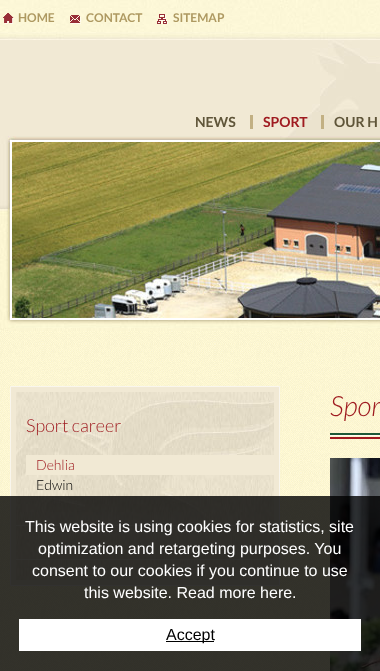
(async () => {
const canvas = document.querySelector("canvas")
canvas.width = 380
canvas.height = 671
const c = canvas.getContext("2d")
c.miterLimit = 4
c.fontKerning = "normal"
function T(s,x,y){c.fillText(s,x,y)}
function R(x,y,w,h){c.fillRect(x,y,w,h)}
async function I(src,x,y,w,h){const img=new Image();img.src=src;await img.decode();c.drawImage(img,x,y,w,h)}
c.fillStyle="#fff"
R(0,0,380,671)
await I("1.png",0,331,380,340)
await I("2.png",0,0,380,331)
await I("3.png",3,13,11,11)
c.font="bold 12px Lato"
c.fillStyle="#ae9961"
T("HOME",18,22)
await I("4.png",70,15,11,9)
T("CONTACT",86,22)
await I("5.png",157,14,11,10)
T("SITEMAP",173,22)
c.font="bold 14px Lato"
c.fillStyle="#5f5539"
T("NEWS",195,127)
c.fillStyle="#9f1b20"
T("SPORT",263,127)
c.fillStyle="#c2b083"
R(250,115,3,14)
c.fillStyle="#5f5539"
T("OUR H",334,127)
c.fillStyle="#c2b083"
R(321,115,3,14)
c.strokeStyle="#fff"
c.lineWidth=2
c.strokeRect(11,141,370,178)
await I("6.png",12,142,368,176)
await I("7.png",373,296,7,24)
await I("8.png",330,433,50,6)
c.font="italic 300 28px Lato"
c.fillStyle="#9f1b20"
T("Spor",330,416)
await I("9.png",330,458,50,213)
c.fillStyle="#f1e9d4"
c.beginPath()
c.rect(10.5,386.5,269,199)
c.fill()
c.strokeStyle="#f9f6ed"
c.lineWidth=1
c.stroke()
await I("10.png",16,392,258,188)
c.fillStyle="#f4eee0"
R(16,525,258,1)
c.font="300 18px Lato"
c.fillStyle="#9f1b20"
T("Sport career",26,432)
c.fillStyle="#f1e9d4"
R(26,455,248,20)
c.font="300 14px Lato"
c.fillStyle="#9f1b20"
T("Dehlia",36,470)
c.fillStyle="#000"
T("Edwin",36,490)
c.fillStyle="#f4eee0"
R(16,559,258,1)
c.fillStyle="#000000cc"
R(0,496,380,175)
c.font="16px Liberation Sans"
c.fillStyle="#fff"
T("This website is using cookies for statistics, site",25,532)
T("optimization and retargeting purposes. You",38,554)
T("consent to our cookies if you continue to use",32,576)
T("this website. Read more here.",84,598)
R(19,619,342,32)
c.fillStyle="#000"
R(166,641,48,1)
T("Accept",166,640)
})()
